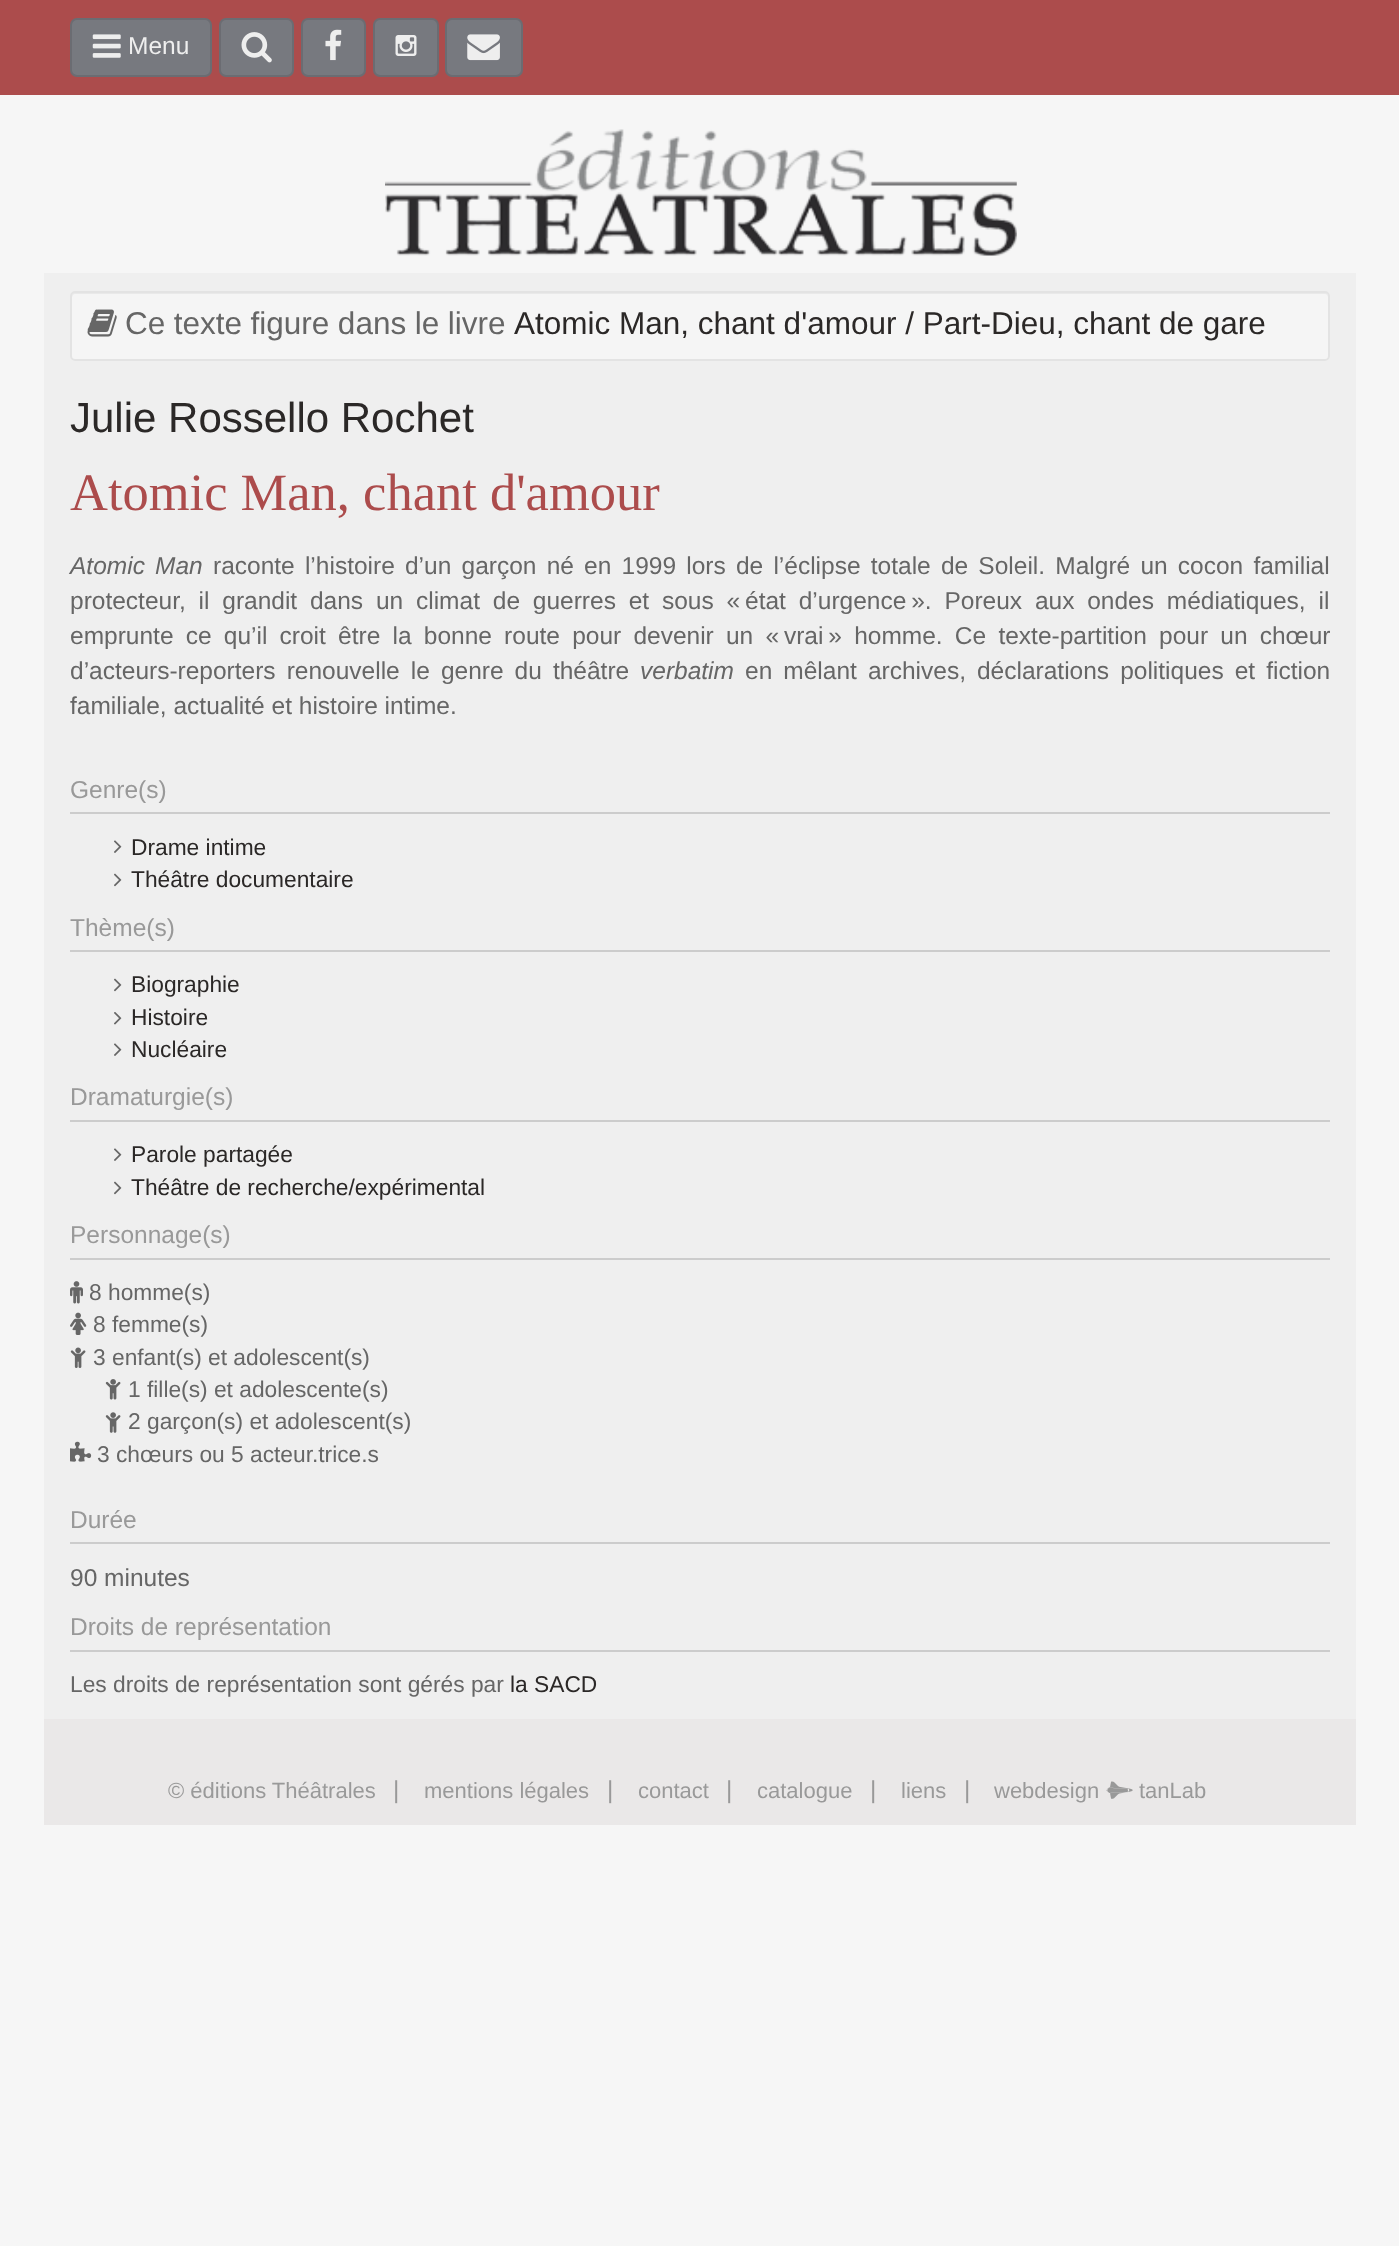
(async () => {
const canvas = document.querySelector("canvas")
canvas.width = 1399
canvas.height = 2246
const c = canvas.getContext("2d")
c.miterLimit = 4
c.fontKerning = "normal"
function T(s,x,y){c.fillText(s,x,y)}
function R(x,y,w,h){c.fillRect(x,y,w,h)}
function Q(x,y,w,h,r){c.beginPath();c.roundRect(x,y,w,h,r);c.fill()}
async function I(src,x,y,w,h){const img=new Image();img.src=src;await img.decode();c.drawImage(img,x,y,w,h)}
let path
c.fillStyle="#f6f6f6"
R(0,0,1399,2246)
c.fillStyle="#ac4c4c"
R(0,0,1399,95)
c.fillStyle="#77797f"
c.beginPath()
c.roundRect(71,19,140,57,6)
c.fill()
c.strokeStyle="#6b6c72"
c.lineWidth=2
c.stroke()
await I("1.png",92,34,29,24)
c.font="24.5px Liberation Sans"
c.fillStyle="#eee"
T("Menu",128,54)
c.fillStyle="#77797f"
c.beginPath()
c.roundRect(220,19,73,57,6)
c.fill()
c.stroke()
await I("2.png",241,32,31,31)
c.beginPath()
c.roundRect(302,19,63,57,6)
c.fill()
c.stroke()
await I("3.png",325,29,17,32)
c.beginPath()
c.roundRect(374,19,64,57,6)
c.fill()
c.stroke()
await I("4.png",395,35,22,21)
c.beginPath()
c.roundRect(446,19,76,57,6)
c.fill()
c.stroke()
await I("5.png",467,34,33,27)
await I("6.png",385,129,632,127)
c.fillStyle="#efefef"
R(44,273,1312,1446)
c.fillStyle="#f5f5f5"
Q(70,291,1260,70,5)
c.fillStyle="#e9e9e9"
path = new Path2D("M75 294h1250c2 0 3 2 3 4c0-3 0-6-4-6h-1248c-4 0-4 3-4 6c0-2 1-4 3-4z")
c.fill(path)
c.beginPath()
c.roundRect(71,292,1258,68,4)
c.strokeStyle="#e3e3e3"
c.stroke()
await I("7.png",87,309,30,28)
c.wordSpacing="-0.25px"
c.font="31.5px Liberation Sans"
c.fillStyle="#666"
T("Ce texte figure dans le livre",125,334)
c.wordSpacing="0px"
c.fillStyle="#2b2827"
T("Atomic Man, chant d'amour / Part-Dieu, chant de gare",514,334)
c.font="42px Liberation Sans"
T("Julie Rossello Rochet",70,432)
c.font="52.5px Liberation Serif"
c.fillStyle="#ac4c4c"
T("Atomic Man, chant d'amour",70,510)
c.wordSpacing="3.4px"
c.font="italic 24.5px Liberation Sans"
c.fillStyle="#666"
T("Atomic Man",70,574)
c.font="24.5px Liberation Sans"
T("raconte l’histoire d’un garçon né en 1999 lors de l’éclipse totale de Soleil. Malgré un cocon familial",213,574)
c.wordSpacing="6px"
T("protecteur, il grandit dans un climat de guerres et sous « état d’urgence ». Poreux aux ondes médiatiques, il",70,609)
c.wordSpacing="5.4px"
T("emprunte ce qu’il croit être la bonne route pour devenir un « vrai » homme. Ce texte-partition pour un chœur",70,644)
c.wordSpacing="4.25px"
T("d’acteurs-reporters renouvelle le genre du théâtre",70,679)
c.wordSpacing="0px"
c.font="italic 24.5px Liberation Sans"
T("verbatim",640,679)
c.wordSpacing="4.25px"
c.font="24.5px Liberation Sans"
T("en mêlant archives, déclarations politiques et fiction",745,679)
c.wordSpacing="0px"
T("familiale, actualité et histoire intime.",70,714)
c.fillStyle="#ccc"
R(70,812,1260,2)
c.fillStyle="#999"
T("Genre(s)",70,798)
await I("8.png",114,840,8,13)
c.font="22.75px Liberation Sans"
c.fillStyle="#2b2827"
T("Drame intime",131,855)
await I("9.png",114,873,8,14)
T("Théâtre documentaire",131,887)
c.fillStyle="#ccc"
R(70,950,1260,2)
c.font="24.5px Liberation Sans"
c.fillStyle="#999"
T("Thème(s)",70,936)
await I("9.png",114,978,8,14)
c.font="22.75px Liberation Sans"
c.fillStyle="#2b2827"
T("Biographie",131,992)
await I("10.png",114,1012,8,13)
T("Histoire",131,1025)
await I("8.png",114,1043,8,13)
T("Nucléaire",131,1057)
c.fillStyle="#ccc"
R(70,1120,1260,2)
c.font="24.5px Liberation Sans"
c.fillStyle="#999"
T("Dramaturgie(s)",70,1105)
await I("8.png",114,1148,8,13)
c.font="22.75px Liberation Sans"
c.fillStyle="#2b2827"
T("Parole partagée",131,1162)
await I("9.png",114,1181,8,14)
T("Théâtre de recherche/expérimental",131,1195)
c.fillStyle="#ccc"
R(70,1258,1260,2)
c.font="24.5px Liberation Sans"
c.fillStyle="#999"
T("Personnage(s)",70,1243)
await I("11.png",70,1281,13,23)
c.font="22.75px Liberation Sans"
c.fillStyle="#666"
T("8 homme(s)",89,1300)
await I("12.png",70,1312,17,23)
T("8 femme(s)",93,1332)
await I("13.png",70,1347,16,21)
T("3 enfant(s) et adolescent(s)",93,1365)
await I("14.png",105,1379,16,21)
T("1 fille(s) et adolescente(s)",128,1397)
await I("15.png",105,1412,16,21)
T("2 garçon(s) et adolescent(s)",128,1429)
await I("16.png",70,1441,22,21)
T("3 chœurs ou 5 acteur.trice.s",97,1462)
c.fillStyle="#ccc"
R(70,1542,1260,2)
c.font="24.5px Liberation Sans"
c.fillStyle="#999"
T("Durée",70,1528)
c.fillStyle="#666"
T("90 minutes",70,1586)
c.fillStyle="#ccc"
R(70,1650,1260,2)
c.fillStyle="#999"
T("Droits de représentation",70,1635)
c.font="22.75px Liberation Sans"
c.fillStyle="#666"
T("Les droits de représentation sont gérés par",70,1692)
c.fillStyle="#2b2827"
T("la SACD",510,1692)
c.fillStyle="#eae8e8"
R(44,1719,1312,106)
c.font="22px Liberation Sans"
c.fillStyle="#999"
T("© éditions Théâtrales",168,1798)
c.font="24.5px Liberation Sans"
T("|",393,1798)
c.font="22px Liberation Sans"
T("mentions légales",424,1798)
c.font="24.5px Liberation Sans"
T("|",607,1798)
c.font="22px Liberation Sans"
T("contact",638,1798)
c.font="24.5px Liberation Sans"
T("|",726,1798)
c.font="22px Liberation Sans"
T("catalogue",757,1798)
c.font="24.5px Liberation Sans"
T("|",870,1798)
c.font="22px Liberation Sans"
T("liens",901,1798)
c.font="24.5px Liberation Sans"
T("|",964,1798)
c.font="22px Liberation Sans"
T("webdesign",994,1798)
await I("17.png",1106,1781,27,18)
T("tanLab",1139,1798)
})()
